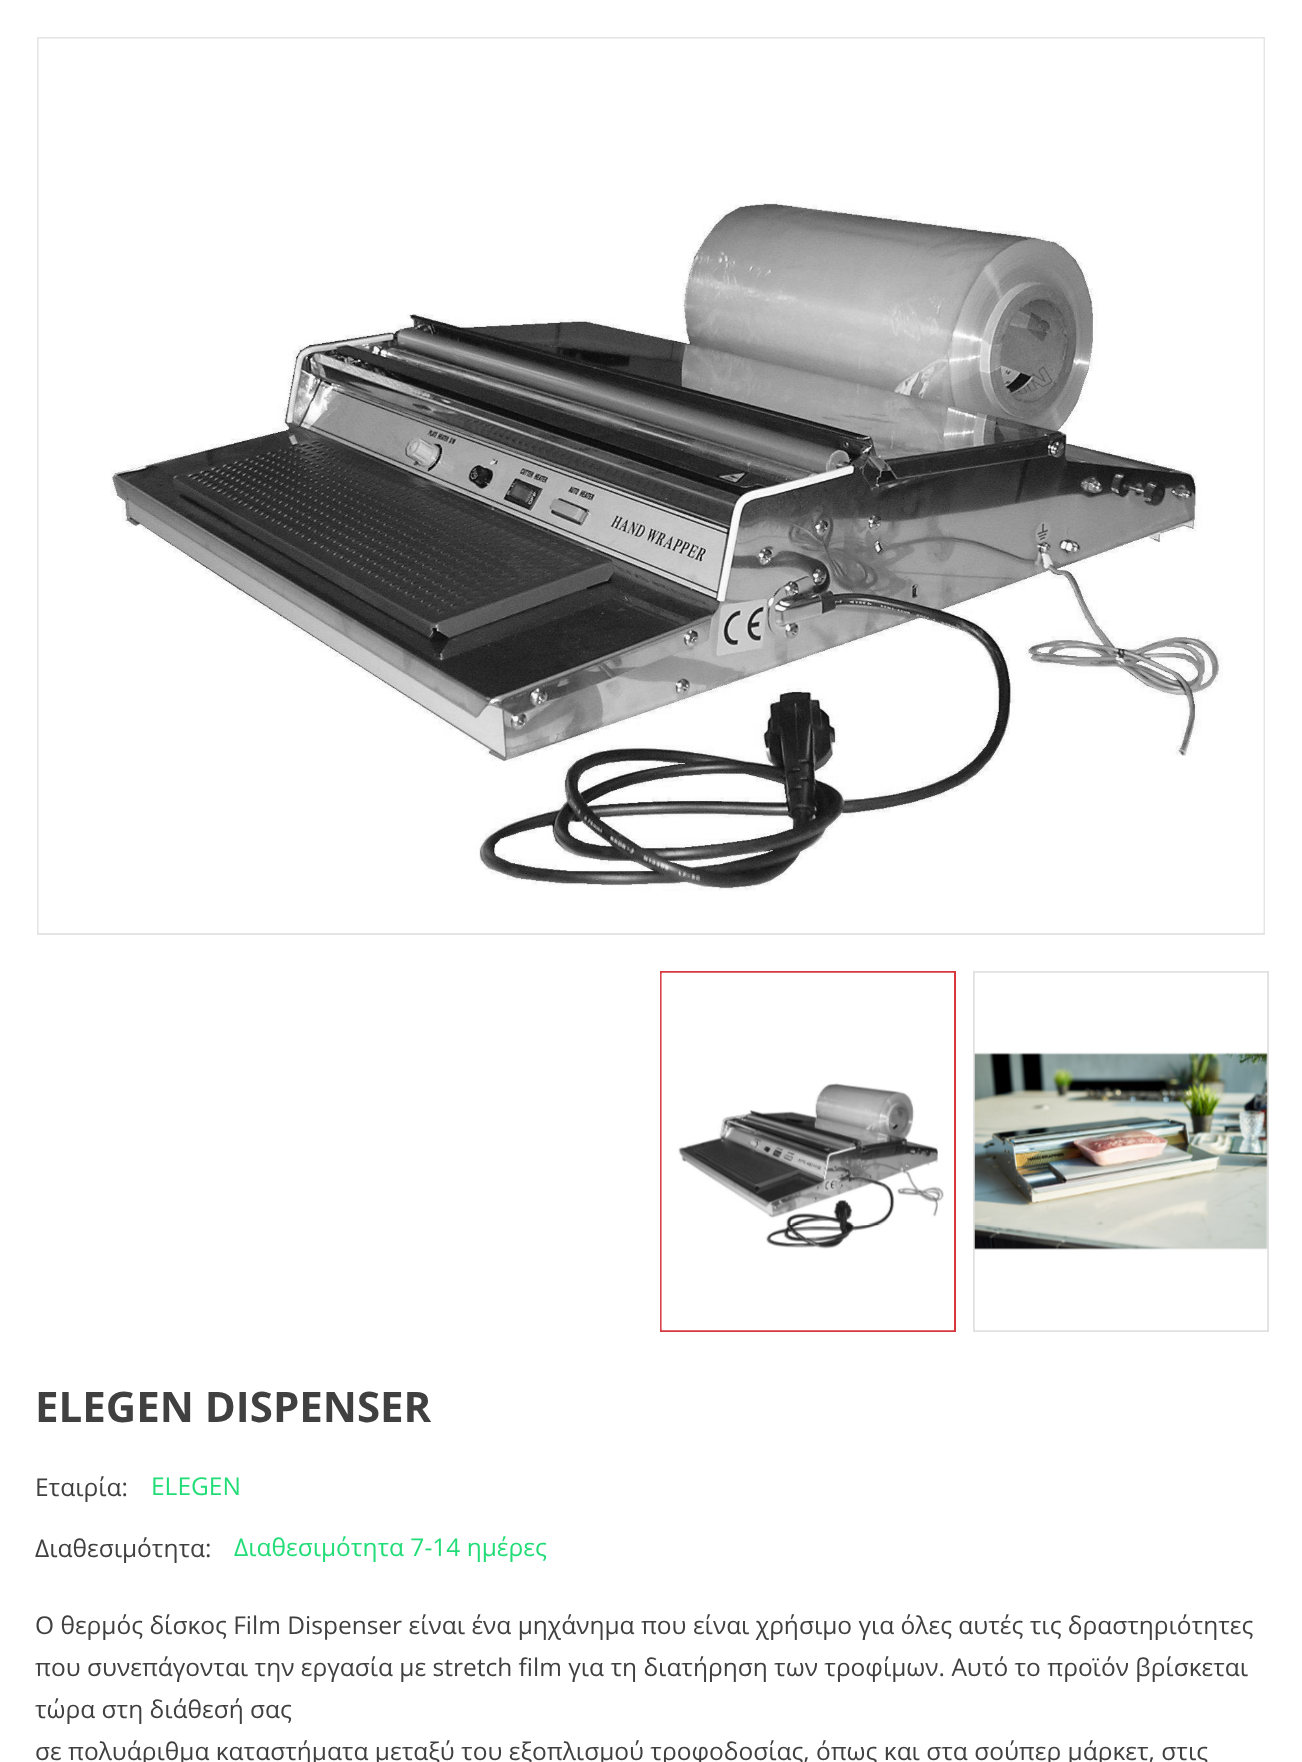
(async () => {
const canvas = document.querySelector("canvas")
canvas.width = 1302
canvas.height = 1762
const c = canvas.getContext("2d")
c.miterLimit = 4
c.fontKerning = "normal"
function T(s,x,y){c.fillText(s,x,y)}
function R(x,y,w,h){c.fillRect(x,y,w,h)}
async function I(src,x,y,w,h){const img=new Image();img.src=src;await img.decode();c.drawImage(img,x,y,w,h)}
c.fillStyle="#fff"
R(0,0,1302,1762)
c.strokeStyle="#e5e5e5"
c.lineWidth=2
c.strokeRect(38,38,1226,896)
await I("1.png",38,38,1226,895)
c.strokeStyle="#d8373e"
c.strokeRect(661,972,294,359)
await I("2.png",660,972,294,359)
c.strokeStyle="#e1e1e1"
c.strokeRect(974,972,294,359)
await I("3.png",974,972,294,359)
c.font="bold 42px Open Sans"
c.fillStyle="#404040"
T("ELEGEN DISPENSER",35,1422)
c.font="24.5px Open Sans"
T("Εταιρία:",35,1496)
c.fillStyle="#2d7"
T("ELEGEN",151,1495)
c.fillStyle="#404040"
T("Διαθεσιμότητα:",35,1557)
c.fillStyle="#2d7"
T("Διαθεσιμότητα 7-14 ημέρες",234,1556)
c.fillStyle="#404040"
T("Ο θερμός δίσκος Film Dispenser είναι ένα μηχάνημα που είναι χρήσιμο για όλες αυτές τις δραστηριότητες",35,1634)
T("που συνεπάγονται την εργασία με stretch film για τη διατήρηση των τροφίμων. Αυτό το προϊόν βρίσκεται",35,1676)
T("τώρα στη διάθεσή σας",35,1718)
T("σε πολυάριθμα καταστήματα μεταξύ του εξοπλισμού τροφοδοσίας, όπως και στα σούπερ μάρκετ, στις",35,1760)
})()
